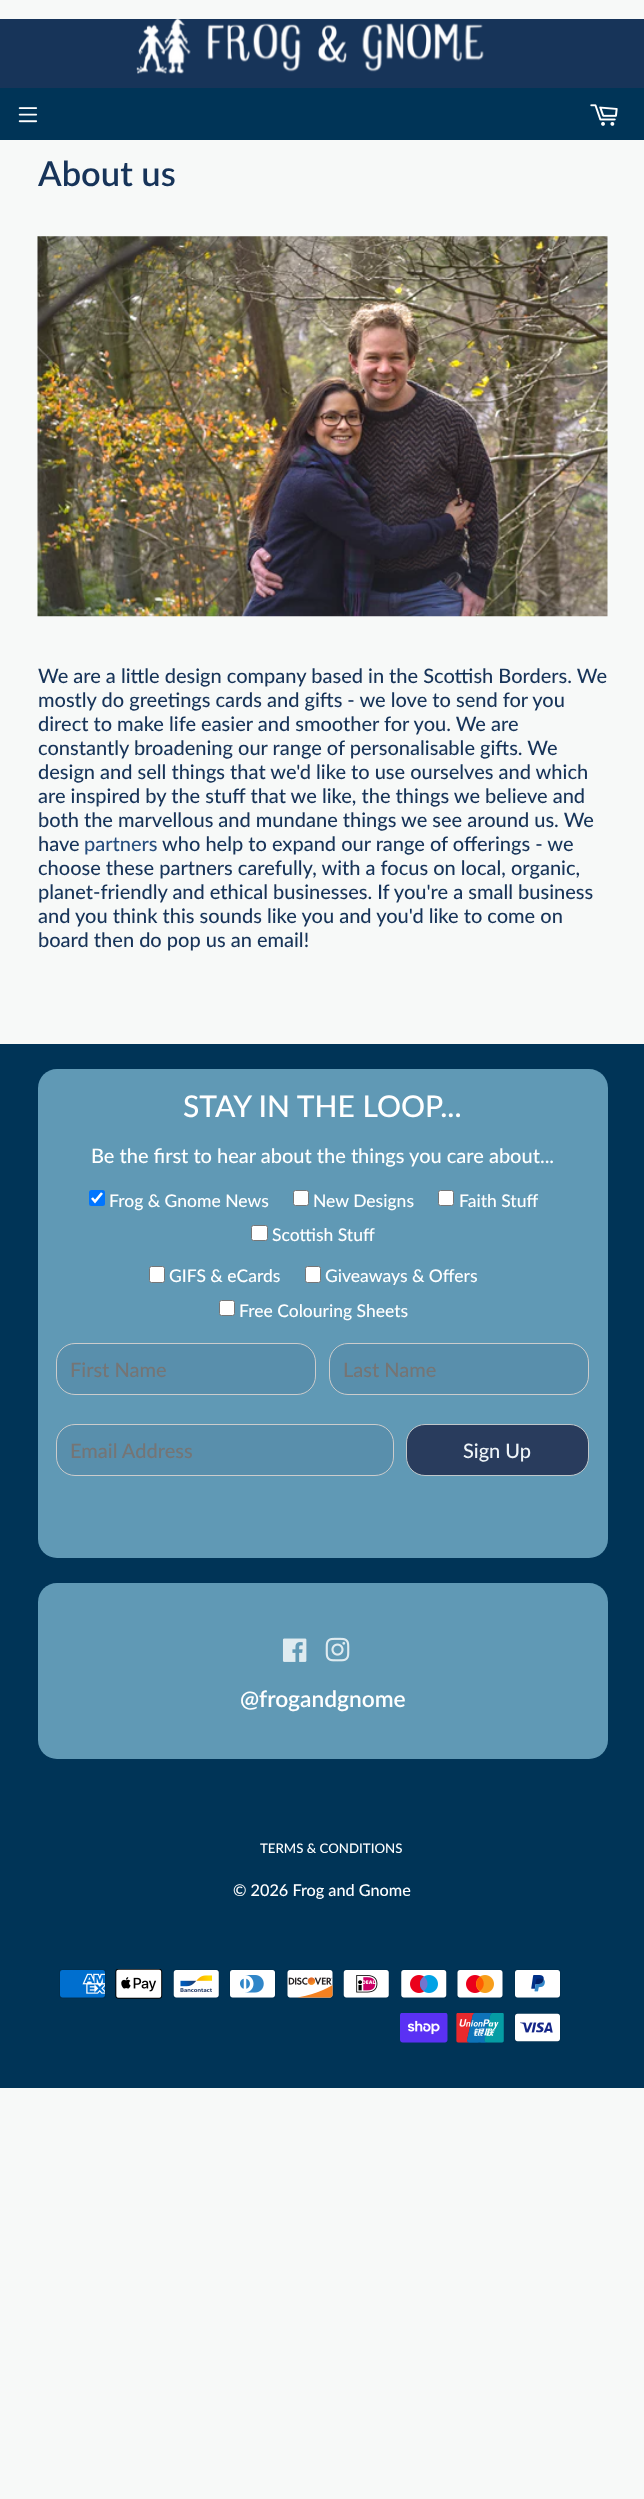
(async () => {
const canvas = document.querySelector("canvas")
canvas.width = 644
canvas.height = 2499
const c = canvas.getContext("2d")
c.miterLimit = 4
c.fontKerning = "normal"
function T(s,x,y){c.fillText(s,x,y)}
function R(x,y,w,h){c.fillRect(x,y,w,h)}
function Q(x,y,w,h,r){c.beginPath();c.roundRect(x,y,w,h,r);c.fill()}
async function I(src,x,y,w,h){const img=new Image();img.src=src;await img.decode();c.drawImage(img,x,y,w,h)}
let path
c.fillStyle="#f7f9f8"
R(0,0,644,2499)
c.fillStyle="#173459"
R(0,19,644,69)
await I("1.png",136,19,348,55)
c.fillStyle="#003457"
R(0,88,644,52)
await I("2.png",18,107,20,16)
await I("3.png",590,104,28,22)
c.font="600 34.5px Lato"
c.fillStyle="#173459"
T("About us",38,186)
await I("4.png",37,236,571,381)
c.font="500 20px Lato"
T("We are a little design company based in the Scottish Borders. We",38,683)
T("mostly do greetings cards and gifts - we love to send for you",38,707)
T("direct to make life easier and smoother for you. We are",38,731)
T("constantly broadening our range of personalisable gifts. We",38,755)
T("design and sell things that we'd like to use ourselves and which",38,779)
T("are inspired by the stuff that we like, the things we believe and",38,803)
T("both the marvellous and mundane things we see around us. We",38,827)
T("have",38,851)
c.fillStyle="#264d7e"
T("partners",84,851)
c.fillStyle="#173459"
T("who help to expand our range of offerings - we",162,851)
T("choose these partners carefully, with a focus on local, organic,",38,875)
T("planet-friendly and ethical businesses. If you're a small business",38,899)
T("and you think this sounds like you and you'd like to come on",38,923)
T("board then do pop us an email!",38,947)
c.fillStyle="#003457"
R(0,1044,644,1044)
c.fillStyle="#6099b5"
Q(38,1069,570,489,19)
c.font="500 30px Lato"
c.fillStyle="#fff"
T("STAY IN THE LOOP...",183,1117)
c.font="500 20px Lato"
T("Be the first to hear about the things you care about...",91,1163)
c.fillStyle="#0075ff"
Q(89,1190,16,16,2.5)
path = new Path2D("M92 1198l3 3.5l7-8.5")
c.strokeStyle="#fff"
c.lineWidth=2.6
c.stroke(path)
c.font="500 17.5px Lato"
c.fillStyle="#fff"
T("Frog & Gnome News",109,1207)
c.beginPath()
c.roundRect(293.5,1190.5,15,15,2)
c.fill()
c.strokeStyle="#767676"
c.lineWidth=1
c.stroke()
T("New Designs",313,1207)
c.beginPath()
c.roundRect(438.5,1190.5,15,15,2)
c.fill()
c.stroke()
T("Faith Stuff",459,1207)
c.beginPath()
c.roundRect(251.5,1225.5,16,15,2)
c.fill()
c.stroke()
T("Scottish Stuff",272,1241)
c.beginPath()
c.roundRect(149.5,1266.5,15,16,2)
c.fill()
c.stroke()
T("GIFS & eCards",169,1282)
c.beginPath()
c.roundRect(305.5,1266.5,15,16,2)
c.fill()
c.stroke()
T("Giveaways & Offers",325,1282)
c.beginPath()
c.roundRect(219.5,1300.5,15,15,2)
c.fill()
c.stroke()
T("Free Colouring Sheets",239,1317)
c.fillStyle="#598fac"
c.beginPath()
c.roundRect(56.5,1343.5,259,51,18.5)
c.fill()
c.strokeStyle="#ccc"
c.stroke()
c.font="500 20px Lato"
c.fillStyle="#757575"
T("First Name",70,1377)
c.fillStyle="#598fac"
c.beginPath()
c.roundRect(329.5,1343.5,259,51,18.5)
c.fill()
c.stroke()
c.fillStyle="#757575"
T("Last Name",343,1377)
c.fillStyle="#598fac"
c.beginPath()
c.roundRect(56.5,1424.5,337,51,18.5)
c.fill()
c.stroke()
c.fillStyle="#757575"
T("Email Address",70,1458)
c.fillStyle="#293c5d"
c.beginPath()
c.roundRect(406.5,1424.5,182,51,18.5)
c.fill()
c.strokeStyle="#c1c7ca"
c.stroke()
c.fillStyle="#eff5f8"
T("Sign Up",463,1458)
c.fillStyle="#6099b5"
Q(38,1583,570,176,19)
await I("5.png",282,1638,25,24)
await I("6.png",325,1637,25,25)
c.font="600 22.75px Lato"
c.fillStyle="#fff"
T("@frogandgnome",240,1707)
c.font="500 13.25px Lato"
T("TERMS & CONDITIONS",260,1853)
c.font="500 16.25px Lato"
T("© 2026 Frog and Gnome",233,1896)
await I("7.png",59,1969,47,30)
await I("8.png",115,1969,48,30)
await I("9.png",173,1969,47,30)
await I("10.png",229,1969,47,30)
await I("11.png",286,1969,48,30)
await I("12.png",343,1969,47,30)
await I("13.png",400,1969,47,30)
await I("14.png",456,1969,48,30)
await I("15.png",514,1969,47,30)
await I("16.png",400,2013,48,30)
await I("17.png",456,2013,48,30)
await I("18.png",514,2013,47,29)
})()
